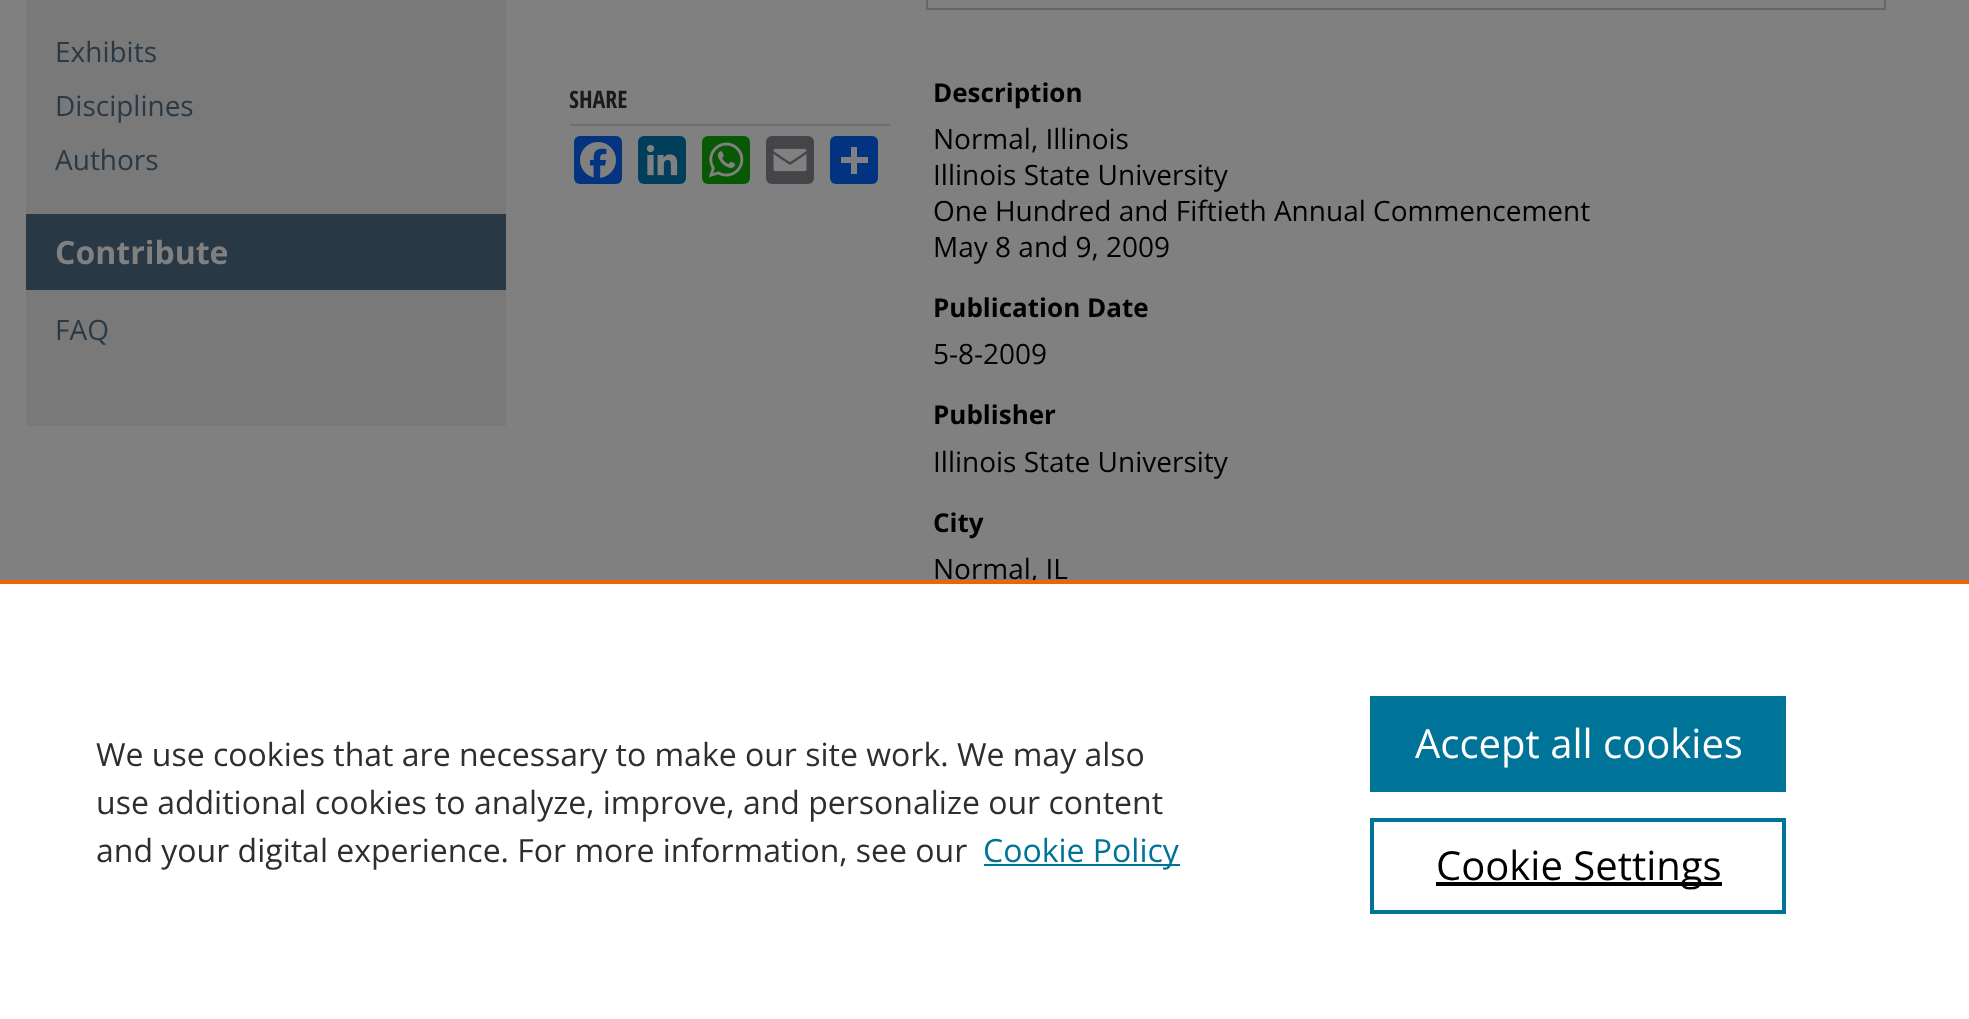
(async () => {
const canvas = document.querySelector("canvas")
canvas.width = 1969
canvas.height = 1019
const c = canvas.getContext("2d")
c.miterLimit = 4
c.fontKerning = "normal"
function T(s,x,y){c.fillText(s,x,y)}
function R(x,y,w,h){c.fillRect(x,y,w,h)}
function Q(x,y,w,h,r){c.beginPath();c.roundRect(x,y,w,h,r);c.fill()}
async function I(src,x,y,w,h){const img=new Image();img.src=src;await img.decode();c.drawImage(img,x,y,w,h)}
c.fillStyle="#808080"
R(0,0,1969,1019)
c.fillStyle="#797979"
R(26,0,480,426)
c.font="28px Open Sans"
c.fillStyle="#293945"
T("Exhibits",55,62)
T("Disciplines",55,116)
T("Authors",55,170)
c.fillStyle="#293845"
R(26,214,480,76)
c.font="bold 32px Open Sans"
c.fillStyle="#808080"
T("Contribute",55,264)
c.font="28px Open Sans"
c.fillStyle="#293945"
T("FAQ",55,340)
c.fillStyle="#6f6f6f"
R(570,124,320,2)
c.font="bold 24px Open Sans Condensed"
c.fillStyle="#1a1a1a"
T("SHARE",569,108)
c.fillStyle="#043380"
Q(574,136,48,48,6)
await I("1.png",580,142,36,36)
c.fillStyle="#003e5b"
Q(638,136,48,48,6)
await I("2.png",646,144,32,32)
c.fillStyle="#095805"
Q(702,136,48,48,6)
await I("3.png",708,142,36,36)
c.fillStyle="#444548"
Q(766,136,48,48,6)
await I("4.png",773,148,34,24)
c.fillStyle="#013380"
Q(830,136,48,48,6)
c.fillStyle="#808080"
R(851,147,6,27)
R(841,157,27,6)
c.strokeStyle="#666"
c.lineWidth=2
c.strokeRect(927,-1,958,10)
c.font="bold 26px Open Sans"
c.fillStyle="#000"
T("Description",933,102)
c.font="28px Open Sans"
T("Normal, Illinois",933,149)
T("Illinois State University",933,185)
T("One Hundred and Fiftieth Annual Commencement",933,221)
T("May 8 and 9, 2009",933,257)
c.font="bold 26px Open Sans"
T("Publication Date",933,317)
c.font="28px Open Sans"
T("5-8-2009",933,364)
c.font="bold 26px Open Sans"
T("Publisher",933,424)
c.font="28px Open Sans"
T("Illinois State University",933,472)
c.font="bold 26px Open Sans"
T("City",933,532)
c.font="28px Open Sans"
T("Normal, IL",933,579)
c.fillStyle="#fff"
R(0,584,1969,435)
c.fillStyle="#eb6500"
R(0,580,1969,4)
c.font="32px Open Sans"
c.fillStyle="#2e2e2e"
T("We use cookies that are necessary to make our site work. We may also",96,766)
T("use additional cookies to analyze, improve, and personalize our content",96,814)
T("and your digital experience. For more information, see our",96,862)
c.fillStyle="#007398"
R(984,864,196,2)
T("Cookie Policy",983,862)
R(1370,696,416,96)
c.font="40px Open Sans"
c.fillStyle="#fff"
T("Accept all cookies",1415,758)
c.strokeStyle="#007398"
c.lineWidth=4
c.strokeRect(1372,820,412,92)
c.fillStyle="#000"
R(1436,882,286,4)
T("Cookie Settings",1436,880)
})()
